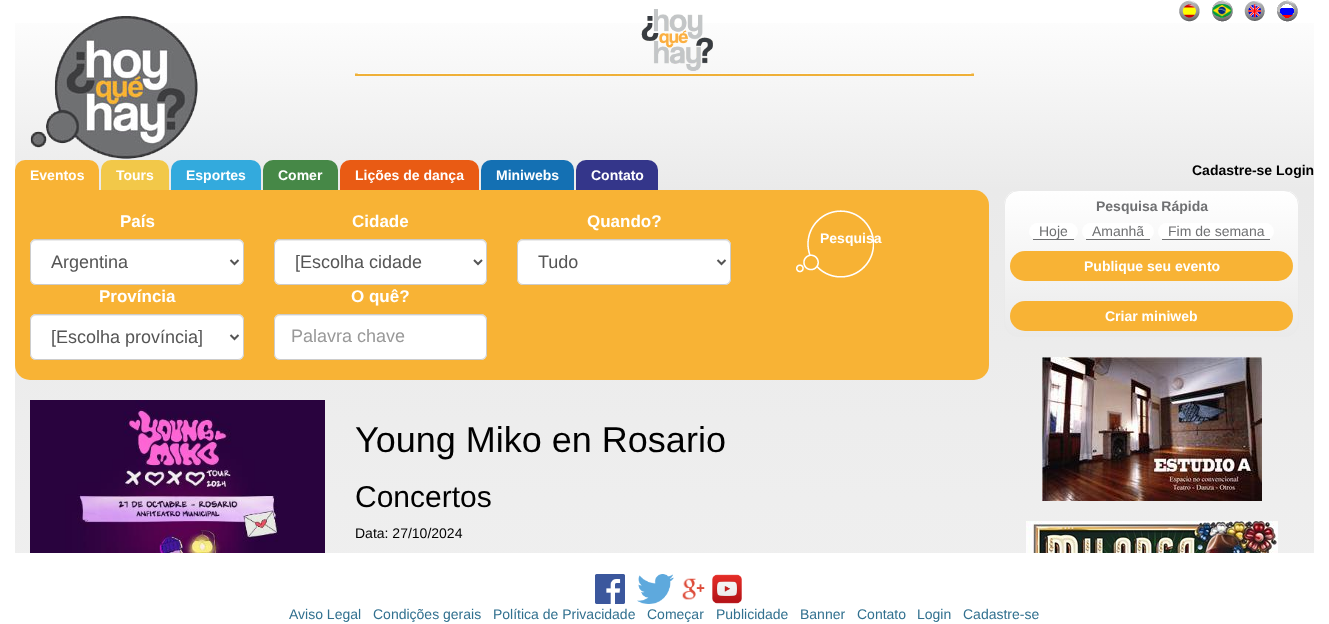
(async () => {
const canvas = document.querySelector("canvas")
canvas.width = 1329
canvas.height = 624
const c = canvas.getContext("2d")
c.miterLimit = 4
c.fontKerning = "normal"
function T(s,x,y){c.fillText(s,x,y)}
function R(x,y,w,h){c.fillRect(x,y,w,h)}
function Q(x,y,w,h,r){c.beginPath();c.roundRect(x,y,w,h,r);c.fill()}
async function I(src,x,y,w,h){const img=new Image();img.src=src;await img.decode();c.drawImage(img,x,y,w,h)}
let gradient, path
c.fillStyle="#fff"
R(0,0,1329,624)
gradient = c.createLinearGradient(665,0,665,190)
gradient.addColorStop(0,"#fff")
gradient.addColorStop(1,"#eaeaea")
c.fillStyle = gradient
R(15,23,1299,167)
await I("1.png",30,16,168,143)
await I("2.png",355,9,619,67)
await I("3.png",1179,0,21,22)
await I("4.png",1212,0,21,22)
await I("5.png",1244,1,21,20)
await I("6.png",1277,0,21,22)
c.fillStyle="#f8b335"
c.beginPath()
c.roundRect(15,160,84,30,[10,10,0,0])
c.fill()
c.font="bold 14px Liberation Sans"
c.fillStyle="#fff"
T("Eventos",30,180)
c.fillStyle="#f2c849"
c.beginPath()
c.roundRect(101,160,68,30,[10,10,0,0])
c.fill()
c.fillStyle="#fff"
T("Tours",116,180)
c.fillStyle="#3ad"
c.beginPath()
c.roundRect(171,160,90,30,[10,10,0,0])
c.fill()
c.fillStyle="#fff"
T("Esportes",186,180)
c.fillStyle="#468847"
c.beginPath()
c.roundRect(263,160,75,30,[10,10,0,0])
c.fill()
c.fillStyle="#fff"
T("Comer",278,180)
c.fillStyle="#e95b14"
c.beginPath()
c.roundRect(340,160,139,30,[10,10,0,0])
c.fill()
c.fillStyle="#fff"
T("Lições de dança",355,180)
c.fillStyle="#1470b3"
c.beginPath()
c.roundRect(481,160,93,30,[10,10,0,0])
c.fill()
c.fillStyle="#fff"
T("Miniwebs",496,180)
c.fillStyle="#34368a"
c.beginPath()
c.roundRect(576,160,82,30,[10,10,0,0])
c.fill()
c.fillStyle="#fff"
T("Contato",591,180)
c.fillStyle="#000"
T("Cadastre-se Login",1192,175)
gradient = c.createLinearGradient(664,190,665,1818)
gradient.addColorStop(0,"#eaeaea")
gradient.addColorStop(1,"#fff")
c.fillStyle = gradient
R(15,190,1299,363)
c.fillStyle="#f8b335"
c.beginPath()
c.roundRect(15,190,974,190,[0,15,15,15])
c.fill()
c.font="bold 17px Liberation Sans"
c.fillStyle="#fff"
T("País",120,227)
Q(30,239,214,46,6)
c.fillStyle="#ececec"
path = new Path2D("M36 241h202c3 0 5 2 5 5v-1c0-3-2-5-5-5h-202c-3 0-5 2-5 5v1c0-3 2-5 5-5z")
c.fill(path)
c.beginPath()
c.roundRect(30.5,239.5,213,45,5.5)
c.strokeStyle="#ccc"
c.stroke()
path = new Path2D("M230.5 260l4 4l4-4")
c.strokeStyle="#555"
c.lineWidth=2
c.stroke(path)
c.font="18px Liberation Sans"
c.fillStyle="#555"
T("Argentina",51,268)
c.font="bold 17px Liberation Sans"
c.fillStyle="#fff"
T("Província",99,302)
Q(30,314,214,46,6)
c.fillStyle="#ececec"
path = new Path2D("M36 316h202c3 0 5 2 5 5v-1c0-3-2-5-5-5h-202c-3 0-5 2-5 5v1c0-3 2-5 5-5z")
c.fill(path)
c.beginPath()
c.roundRect(30.5,314.5,213,45,5.5)
c.strokeStyle="#ccc"
c.lineWidth=1
c.stroke()
path = new Path2D("M230.5 335l4 4l4-4")
c.strokeStyle="#555"
c.lineWidth=2
c.stroke(path)
c.font="18px Liberation Sans"
c.fillStyle="#555"
T("[Escolha província]",51,343)
c.font="bold 17px Liberation Sans"
c.fillStyle="#fff"
T("Cidade",352,227)
Q(274,239,213,46,6)
c.fillStyle="#ececec"
path = new Path2D("M280 241h201c3 0 5 2 5 5v-1c0-3-2-5-5-5h-201c-3 0-5 2-5 5v1c0-3 2-5 5-5z")
c.fill(path)
c.beginPath()
c.roundRect(274.5,239.5,212,45,5.5)
c.strokeStyle="#ccc"
c.lineWidth=1
c.stroke()
path = new Path2D("M474 260l4 4l4-4")
c.strokeStyle="#555"
c.lineWidth=2
c.stroke(path)
c.font="18px Liberation Sans"
c.fillStyle="#555"
T("[Escolha cidade",295,268)
c.font="bold 17px Liberation Sans"
c.fillStyle="#fff"
T("O quê?",351,302)
Q(274,314,213,46,6)
c.fillStyle="#ececec"
path = new Path2D("M280 316h201c3 0 5 2 5 5v-1c0-3-2-5-5-5h-201c-3 0-5 2-5 5v1c0-3 2-5 5-5z")
c.fill(path)
c.beginPath()
c.roundRect(274.5,314.5,212,45,5.5)
c.strokeStyle="#ccc"
c.lineWidth=1
c.stroke()
c.font="18px Liberation Sans"
c.fillStyle="#999"
T("Palavra chave",291,342)
c.font="bold 17px Liberation Sans"
c.fillStyle="#fff"
T("Quando?",587,227)
Q(517,239,214,46,6)
c.fillStyle="#ececec"
path = new Path2D("M523 241h202c3 0 5 2 5 5v-1c0-3-2-5-5-5h-202c-3 0-5 2-5 5v1c0-3 2-5 5-5z")
c.fill(path)
c.beginPath()
c.roundRect(517.5,239.5,213,45,5.5)
c.stroke()
path = new Path2D("M717.5 260l4 4l4-4")
c.strokeStyle="#555"
c.lineWidth=2
c.stroke(path)
c.font="18px Liberation Sans"
c.fillStyle="#555"
T("Tudo",538,268)
await I("7.png",796,210,78,68)
c.font="bold 14px Liberation Sans"
c.fillStyle="#fff"
T("Pesquisa",820,243)
await I("8.png",30,400,295,153)
c.font="36px Liberation Sans"
c.fillStyle="#000"
T("Young Miko en Rosario",355,452)
c.font="30px Liberation Sans"
T("Concertos",355,507)
c.font="14px Liberation Sans"
T("Data: 27/10/2024",355,538)
c.save()
c.beginPath()
c.roundRect(1004,190,295,147,15)
c.clip()
gradient = c.createLinearGradient(1152,191,1152,336)
gradient.addColorStop(0,"#fff")
gradient.addColorStop(1,"#eaeaea")
c.fillStyle = gradient
R(1004,191,295,145)
c.restore()
c.beginPath()
c.roundRect(1004.5,190.5,294,146,14.5)
c.strokeStyle="#eaeaea"
c.lineWidth=1
c.stroke()
c.font="bold 14px Liberation Sans"
c.fillStyle="#6f7072"
T("Pesquisa Rápida",1096,211)
c.fillStyle="#fff"
Q(1029,223,49,17,8.5)
c.font="14px Liberation Sans"
c.fillStyle="#6f7072"
T("Hoje",1039,236)
R(1033,239,41,1)
c.fillStyle="#fff"
Q(1082,223,72,17,8.5)
c.fillStyle="#6f7072"
T("Amanhã",1092,236)
R(1086,239,64,1)
c.fillStyle="#fff"
Q(1158,223,116,17,8.5)
c.fillStyle="#6f7072"
T("Fim de semana",1168,236)
R(1162,239,108,1)
c.fillStyle="#f8b335"
Q(1010,251,283,30,15)
c.font="bold 14px Liberation Sans"
c.fillStyle="#fff"
T("Publique seu evento",1084,271)
c.fillStyle="#f8b335"
Q(1010,301,283,30,15)
c.fillStyle="#fff"
T("Criar miniweb",1105,321)
await I("9.png",1042,357,220,144)
await I("10.png",1026,521,252,32)
await I("11.png",595,574,30,30)
await I("12.png",637,574,37,30)
await I("13.png",682,578,23,22)
await I("14.png",712,574,30,30)
c.font="14px Liberation Sans"
c.fillStyle="#31708f"
T("Aviso Legal",289,619)
T("Condições gerais",373,619)
T("Política de Privacidade",493,619)
T("Começar",647,619)
T("Publicidade",716,619)
T("Banner",800,619)
T("Contato",857,619)
T("Login",917,619)
T("Cadastre-se",963,619)
})()
